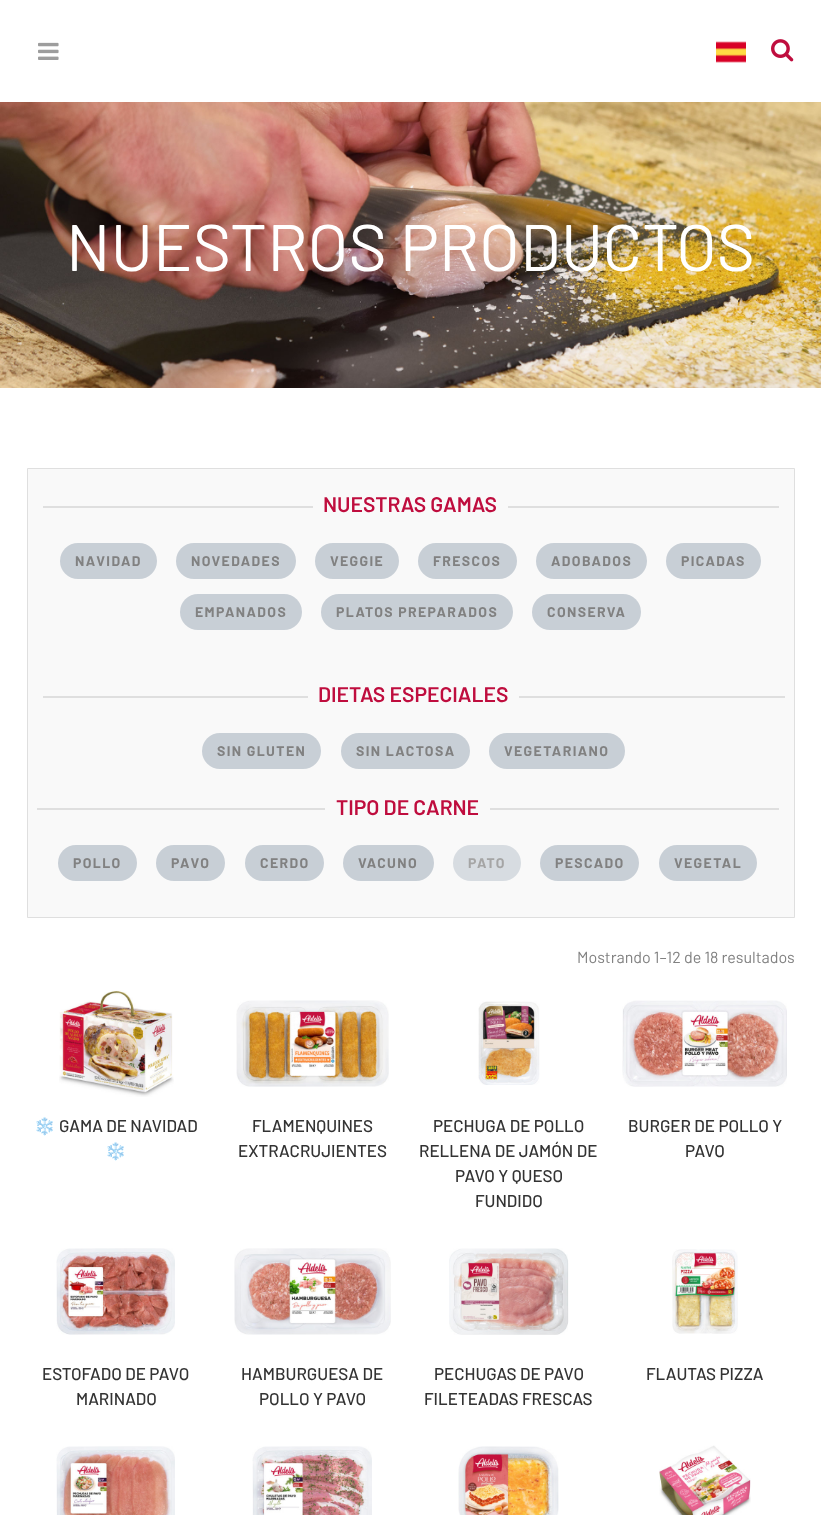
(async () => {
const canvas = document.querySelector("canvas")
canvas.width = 821
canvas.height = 1515
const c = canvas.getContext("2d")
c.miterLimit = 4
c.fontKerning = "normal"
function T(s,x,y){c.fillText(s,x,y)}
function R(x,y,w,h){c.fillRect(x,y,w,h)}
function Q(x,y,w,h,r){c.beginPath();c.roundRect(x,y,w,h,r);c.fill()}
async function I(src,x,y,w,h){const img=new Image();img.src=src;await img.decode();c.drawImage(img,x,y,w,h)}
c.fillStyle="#fff"
R(0,0,821,1515)
await I("1.png",38,42,21,18)
await I("2.png",716,41,30,22)
await I("3.png",771,39,23,23)
await I("4.png",0,102,821,286)
c.font="65.75px Barlow"
T("NUESTROS PRODUCTOS",66,271)
c.fillStyle="#f9f9f9"
c.beginPath()
c.rect(27.5,468.5,767,449)
c.fill()
c.strokeStyle="#dfdfdf"
c.stroke()
c.fillStyle="#dfdfdf"
R(43,506,270,2)
c.font="600 21.1px Barlow"
c.fillStyle="#bf0d3e"
T("NUESTRAS GAMAS",323,512)
c.fillStyle="#dfdfdf"
R(508,506,271,2)
c.fillStyle="#c8cfd6"
Q(60,543,97,36,18)
c.letterSpacing="1.4px"
c.font="bold 14px Barlow"
c.fillStyle="#818181"
T("NAVIDAD",75,566)
c.fillStyle="#c8cfd6"
Q(176,543,120,36,18)
c.fillStyle="#818181"
T("NOVEDADES",191,566)
c.fillStyle="#c8cfd6"
Q(315,543,84,36,18)
c.fillStyle="#818181"
T("VEGGIE",330,566)
c.fillStyle="#c8cfd6"
Q(418,543,99,36,18)
c.fillStyle="#818181"
T("FRESCOS",433,566)
c.fillStyle="#c8cfd6"
Q(536,543,111,36,18)
c.fillStyle="#818181"
T("ADOBADOS",551,566)
c.fillStyle="#c8cfd6"
Q(666,543,95,36,18)
c.fillStyle="#818181"
T("PICADAS",681,566)
c.fillStyle="#c8cfd6"
Q(180,594,122,36,18)
c.fillStyle="#818181"
T("EMPANADOS",195,617)
c.fillStyle="#c8cfd6"
Q(321,594,192,36,18)
c.fillStyle="#818181"
T("PLATOS PREPARADOS",336,617)
c.fillStyle="#c8cfd6"
Q(532,594,109,36,18)
c.fillStyle="#818181"
T("CONSERVA",547,617)
c.fillStyle="#dfdfdf"
R(43,696,265,2)
c.letterSpacing="0px"
c.font="600 21.1px Barlow"
c.fillStyle="#bf0d3e"
T("DIETAS ESPECIALES",318,702)
c.fillStyle="#dfdfdf"
R(519,696,266,2)
c.fillStyle="#c8cfd6"
Q(202,733,119,36,18)
c.letterSpacing="1.4px"
c.font="bold 14px Barlow"
c.fillStyle="#818181"
T("SIN GLUTEN",217,756)
c.fillStyle="#c8cfd6"
Q(341,733,129,36,18)
c.fillStyle="#818181"
T("SIN LACTOSA",356,756)
c.fillStyle="#c8cfd6"
Q(489,733,136,36,18)
c.fillStyle="#818181"
T("VEGETARIANO",504,756)
c.fillStyle="#dfdfdf"
R(37,808,288,2)
c.letterSpacing="0px"
c.font="600 21.1px Barlow"
c.fillStyle="#bf0d3e"
T("TIPO DE CARNE",336,815)
c.fillStyle="#dfdfdf"
R(490,808,289,2)
c.fillStyle="#c8cfd6"
Q(58,845,79,36,18)
c.letterSpacing="1.4px"
c.font="bold 14px Barlow"
c.fillStyle="#818181"
T("POLLO",73,868)
c.fillStyle="#c8cfd6"
Q(156,845,69,36,18)
c.fillStyle="#818181"
T("PAVO",171,868)
c.fillStyle="#c8cfd6"
Q(245,845,79,36,18)
c.fillStyle="#818181"
T("CERDO",260,868)
c.fillStyle="#c8cfd6"
Q(343,845,91,36,18)
c.fillStyle="#818181"
T("VACUNO",358,868)
c.fillStyle="#d7dce1"
Q(453,845,68,36,18)
c.fillStyle="#a5a5a5"
T("PATO",468,868)
c.fillStyle="#c8cfd6"
Q(540,845,99,36,18)
c.fillStyle="#818181"
T("PESCADO",555,868)
c.fillStyle="#c8cfd6"
Q(659,845,98,36,18)
c.fillStyle="#818181"
T("VEGETAL",674,868)
c.letterSpacing="0px"
c.font="16px Barlow"
T("Mostrando 1–12 de 18 resultados",577,963)
await I("5.png",59,990,115,107)
c.font="17px Noto Color Emoji"
c.fillStyle="#333"
T("❄️",34,1132)
c.font="500 17px Barlow"
T("GAMA DE NAVIDAD",59,1132)
c.font="17px Noto Color Emoji"
T("❄️",105,1157)
await I("6.png",236,1000,153,87)
c.font="500 17px Barlow"
T("FLAMENQUINES",252,1132)
T("EXTRACRUJIENTES",238,1157)
await I("7.png",478,1001,62,84)
T("PECHUGA DE POLLO",433,1132)
T("RELLENA DE JAMÓN DE",419,1157)
T("PAVO Y QUESO",455,1182)
T("FUNDIDO",475,1207)
await I("8.png",622,1000,165,87)
T("BURGER DE POLLO Y",628,1132)
T("PAVO",685,1157)
await I("9.png",56,1248,119,87)
T("ESTOFADO DE PAVO",42,1380)
T("MARINADO",76,1405)
await I("10.png",234,1248,157,87)
T("HAMBURGUESA DE",241,1380)
T("POLLO Y PAVO",259,1405)
await I("11.png",449,1248,120,87)
T("PECHUGAS DE PAVO",434,1380)
T("FILETEADAS FRESCAS",424,1405)
await I("12.png",672,1249,66,85)
T("FLAUTAS PIZZA",646,1380)
await I("13.png",56,1446,119,69)
await I("14.png",252,1446,120,69)
await I("15.png",458,1446,101,69)
await I("16.png",659,1445,92,70)
})()
